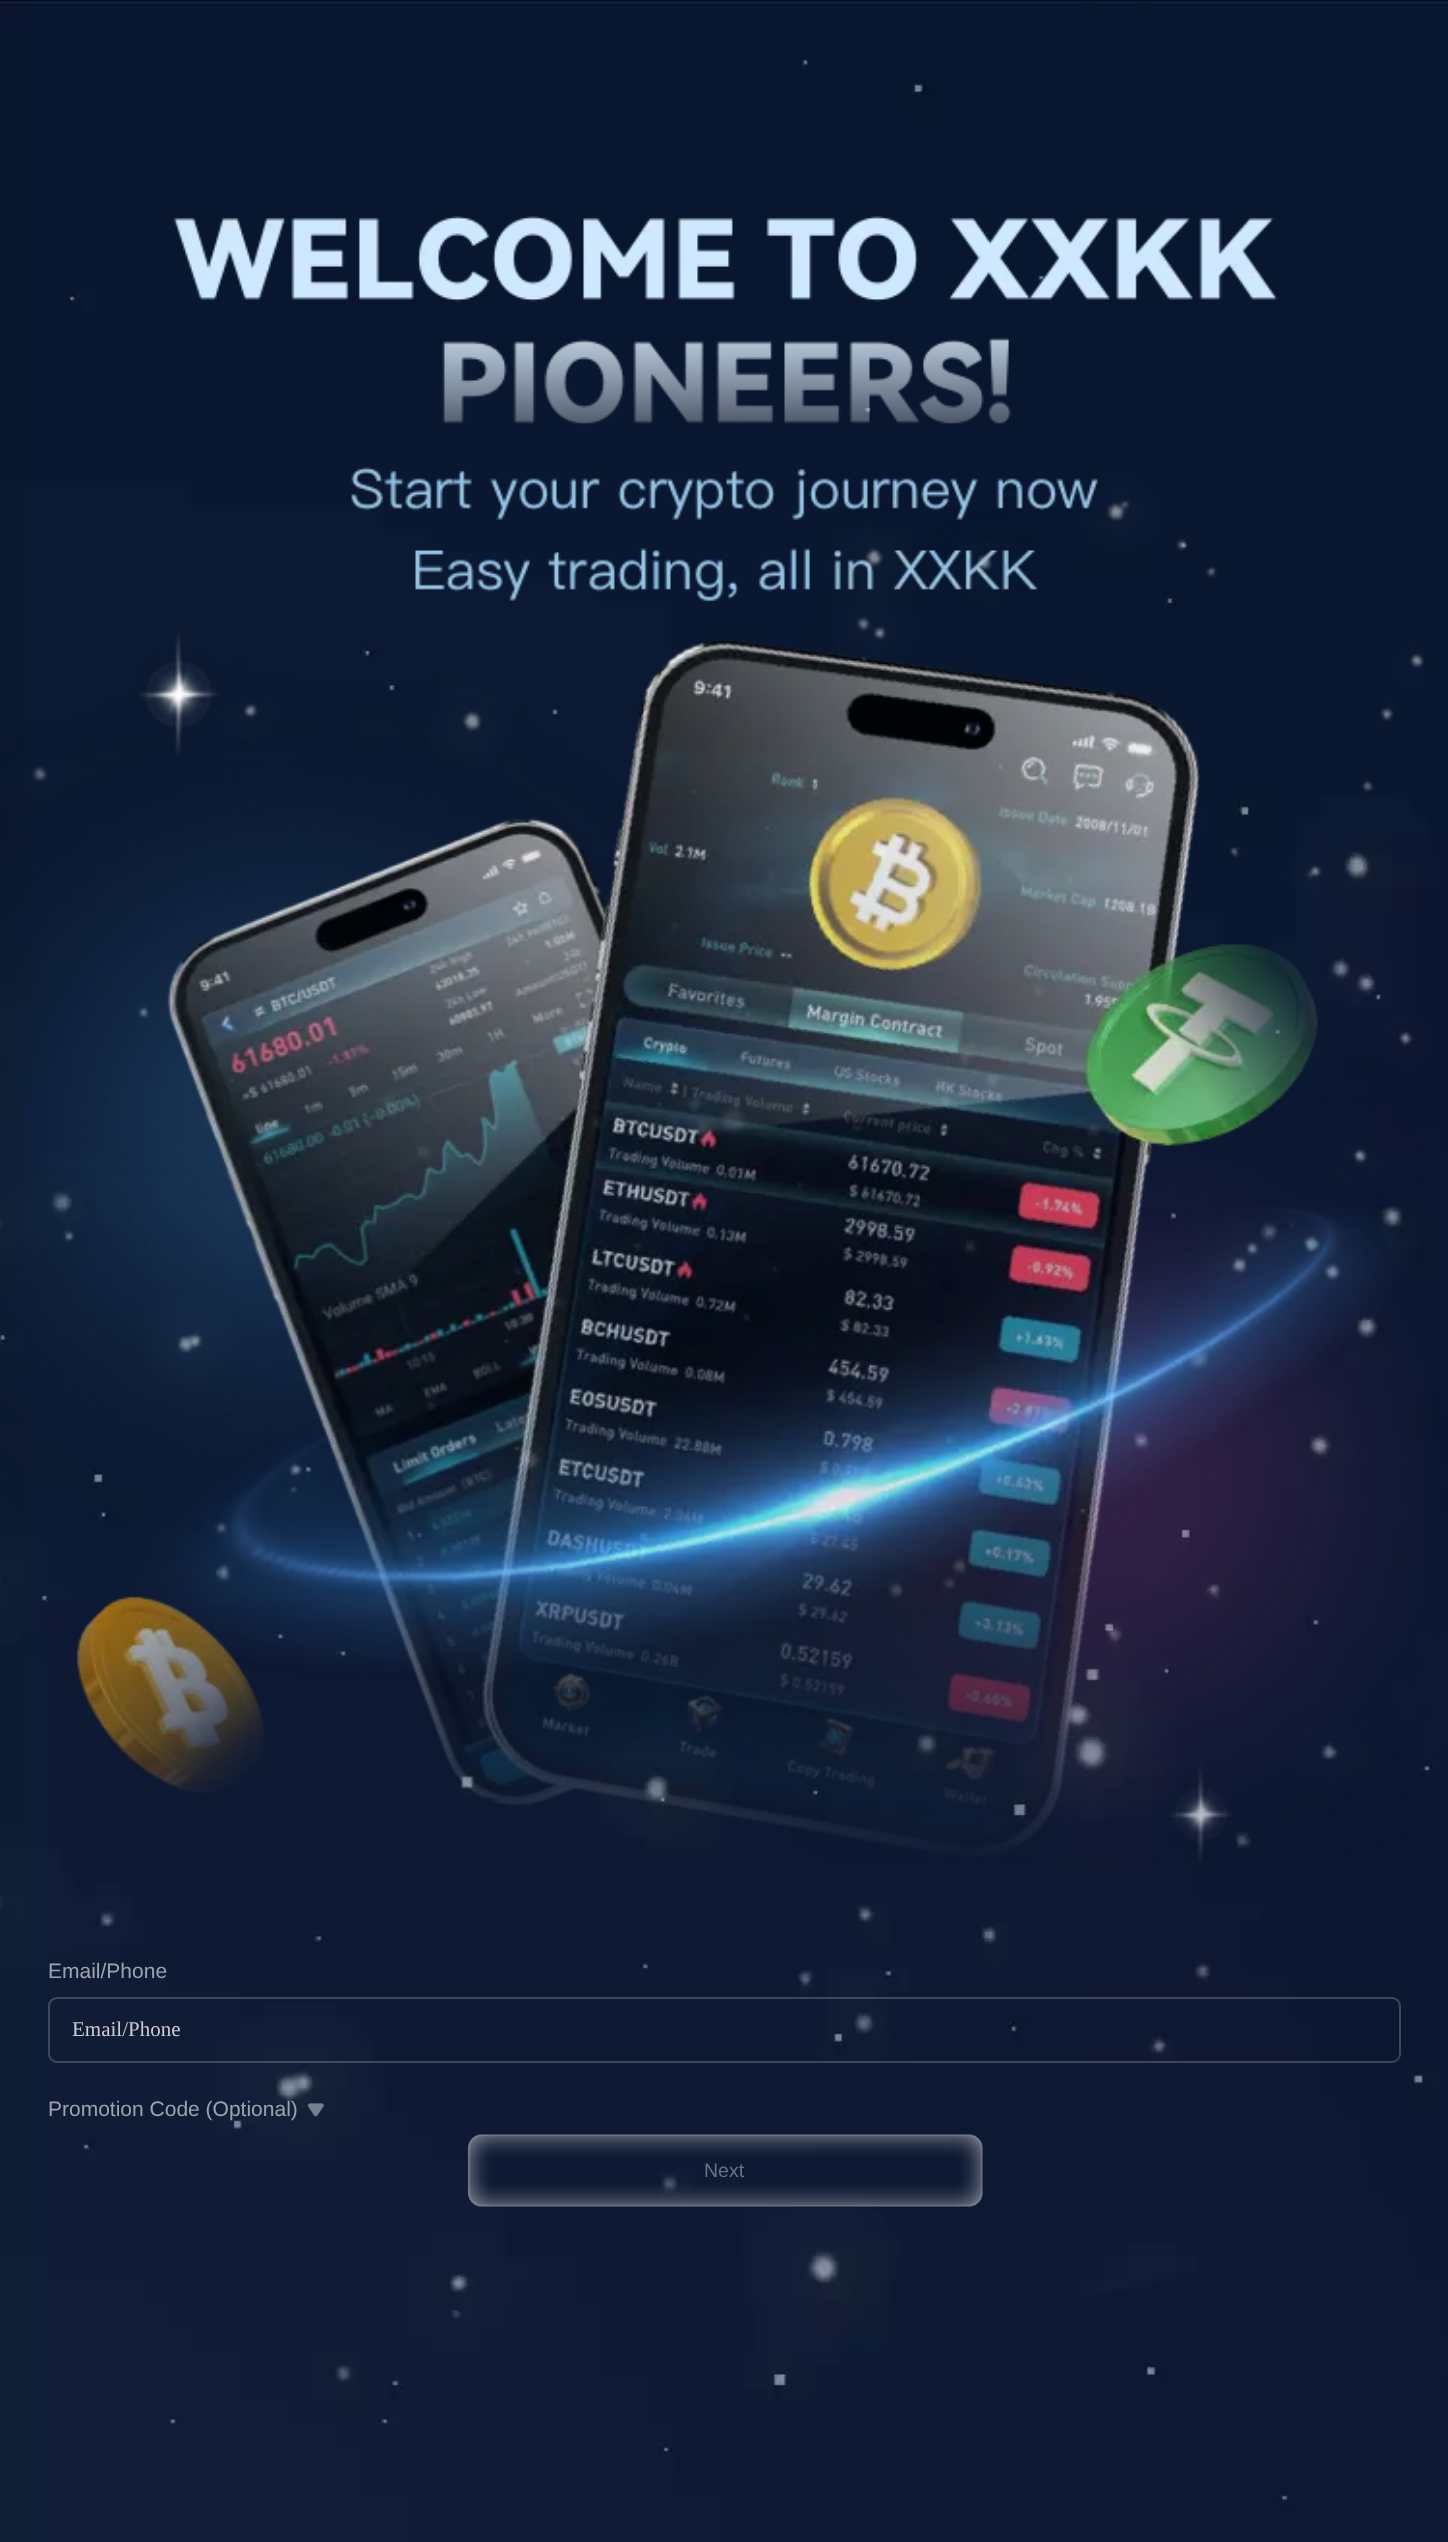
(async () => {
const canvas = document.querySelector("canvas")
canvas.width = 1448
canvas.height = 2542
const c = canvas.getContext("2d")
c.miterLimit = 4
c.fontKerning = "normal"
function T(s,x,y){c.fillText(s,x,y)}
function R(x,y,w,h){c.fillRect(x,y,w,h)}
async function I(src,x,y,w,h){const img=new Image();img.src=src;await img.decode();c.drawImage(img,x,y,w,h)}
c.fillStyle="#fff"
R(0,0,1448,2542)
await I("1.png",0,0,1448,2542)
await I("2.png",0,216,1425,1647)
c.font="21px Liberation Sans"
c.fillStyle="#9ca3af"
T("Email/Phone",48,1978)
c.beginPath()
c.roundRect(49,1998,1351,64,8)
c.strokeStyle="#ffffff33"
c.lineWidth=2
c.stroke()
c.font="21px Liberation Serif"
c.fillStyle="#ccc"
T("Email/Phone",72,2036)
c.font="21px Liberation Sans"
c.fillStyle="#9ca3af"
T("Promotion Code (Optional)",48,2116)
await I("3.png",307,2103,17,14)
await I("4.png",468,2134,515,73)
c.font="19.5px Liberation Sans"
c.fillStyle="#6b7280"
T("Next",704,2177)
})()
